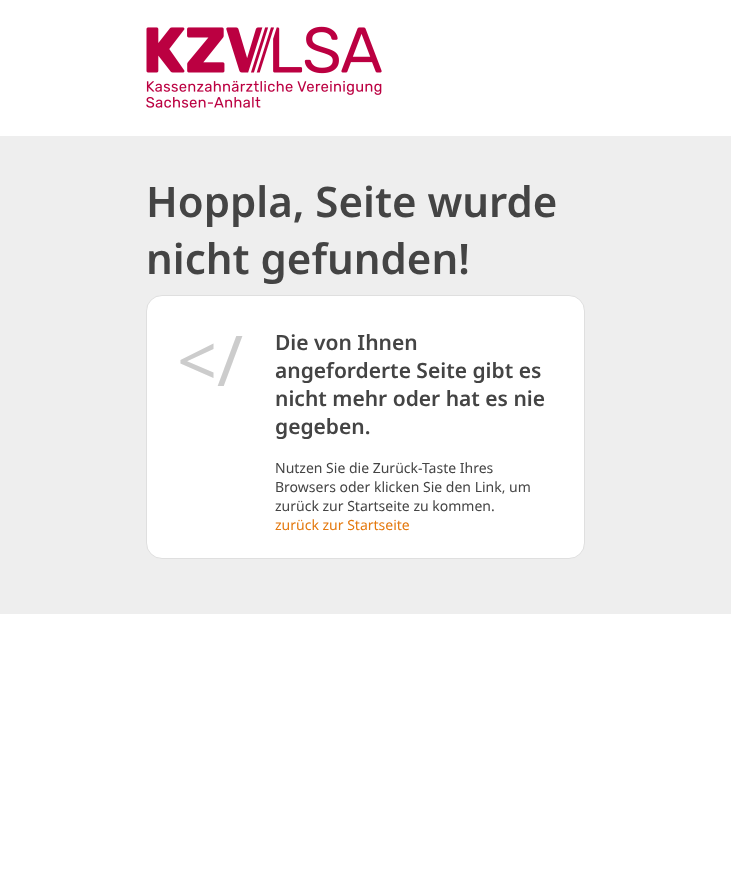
(async () => {
const canvas = document.querySelector("canvas")
canvas.width = 731
canvas.height = 873
const c = canvas.getContext("2d")
c.miterLimit = 4
c.fontKerning = "normal"
function T(s,x,y){c.fillText(s,x,y)}
function R(x,y,w,h){c.fillRect(x,y,w,h)}
async function I(src,x,y,w,h){const img=new Image();img.src=src;await img.decode();c.drawImage(img,x,y,w,h)}
c.fillStyle="#fff"
R(0,0,731,873)
await I("1.png",146,26,236,82)
c.fillStyle="#eee"
R(0,136,731,478)
c.font="600 42px Noto Sans"
c.fillStyle="#444"
T("Hoppla, Seite wurde",146,217)
T("nicht gefunden!",146,274)
c.fillStyle="#fff"
c.beginPath()
c.roundRect(146.5,295.5,438,263,15.5)
c.fill()
c.strokeStyle="#dfdfdf"
c.stroke()
c.font="70px Noto Sans"
c.fillStyle="#ccc"
T("<\/",177,386)
c.font="600 21px Noto Sans"
c.fillStyle="#444"
T("Die von Ihnen",275,350)
T("angeforderte Seite gibt es",275,378)
T("nicht mehr oder hat es nie",275,406)
T("gegeben.",275,434)
c.font="14px Noto Sans"
T("Nutzen Sie die Zurück-Taste Ihres",275,473)
T("Browsers oder klicken Sie den Link, um",275,492)
T("zurück zur Startseite zu kommen.",275,511)
c.fillStyle="#e4790f"
T("zurück zur Startseite",275,530)
})()
